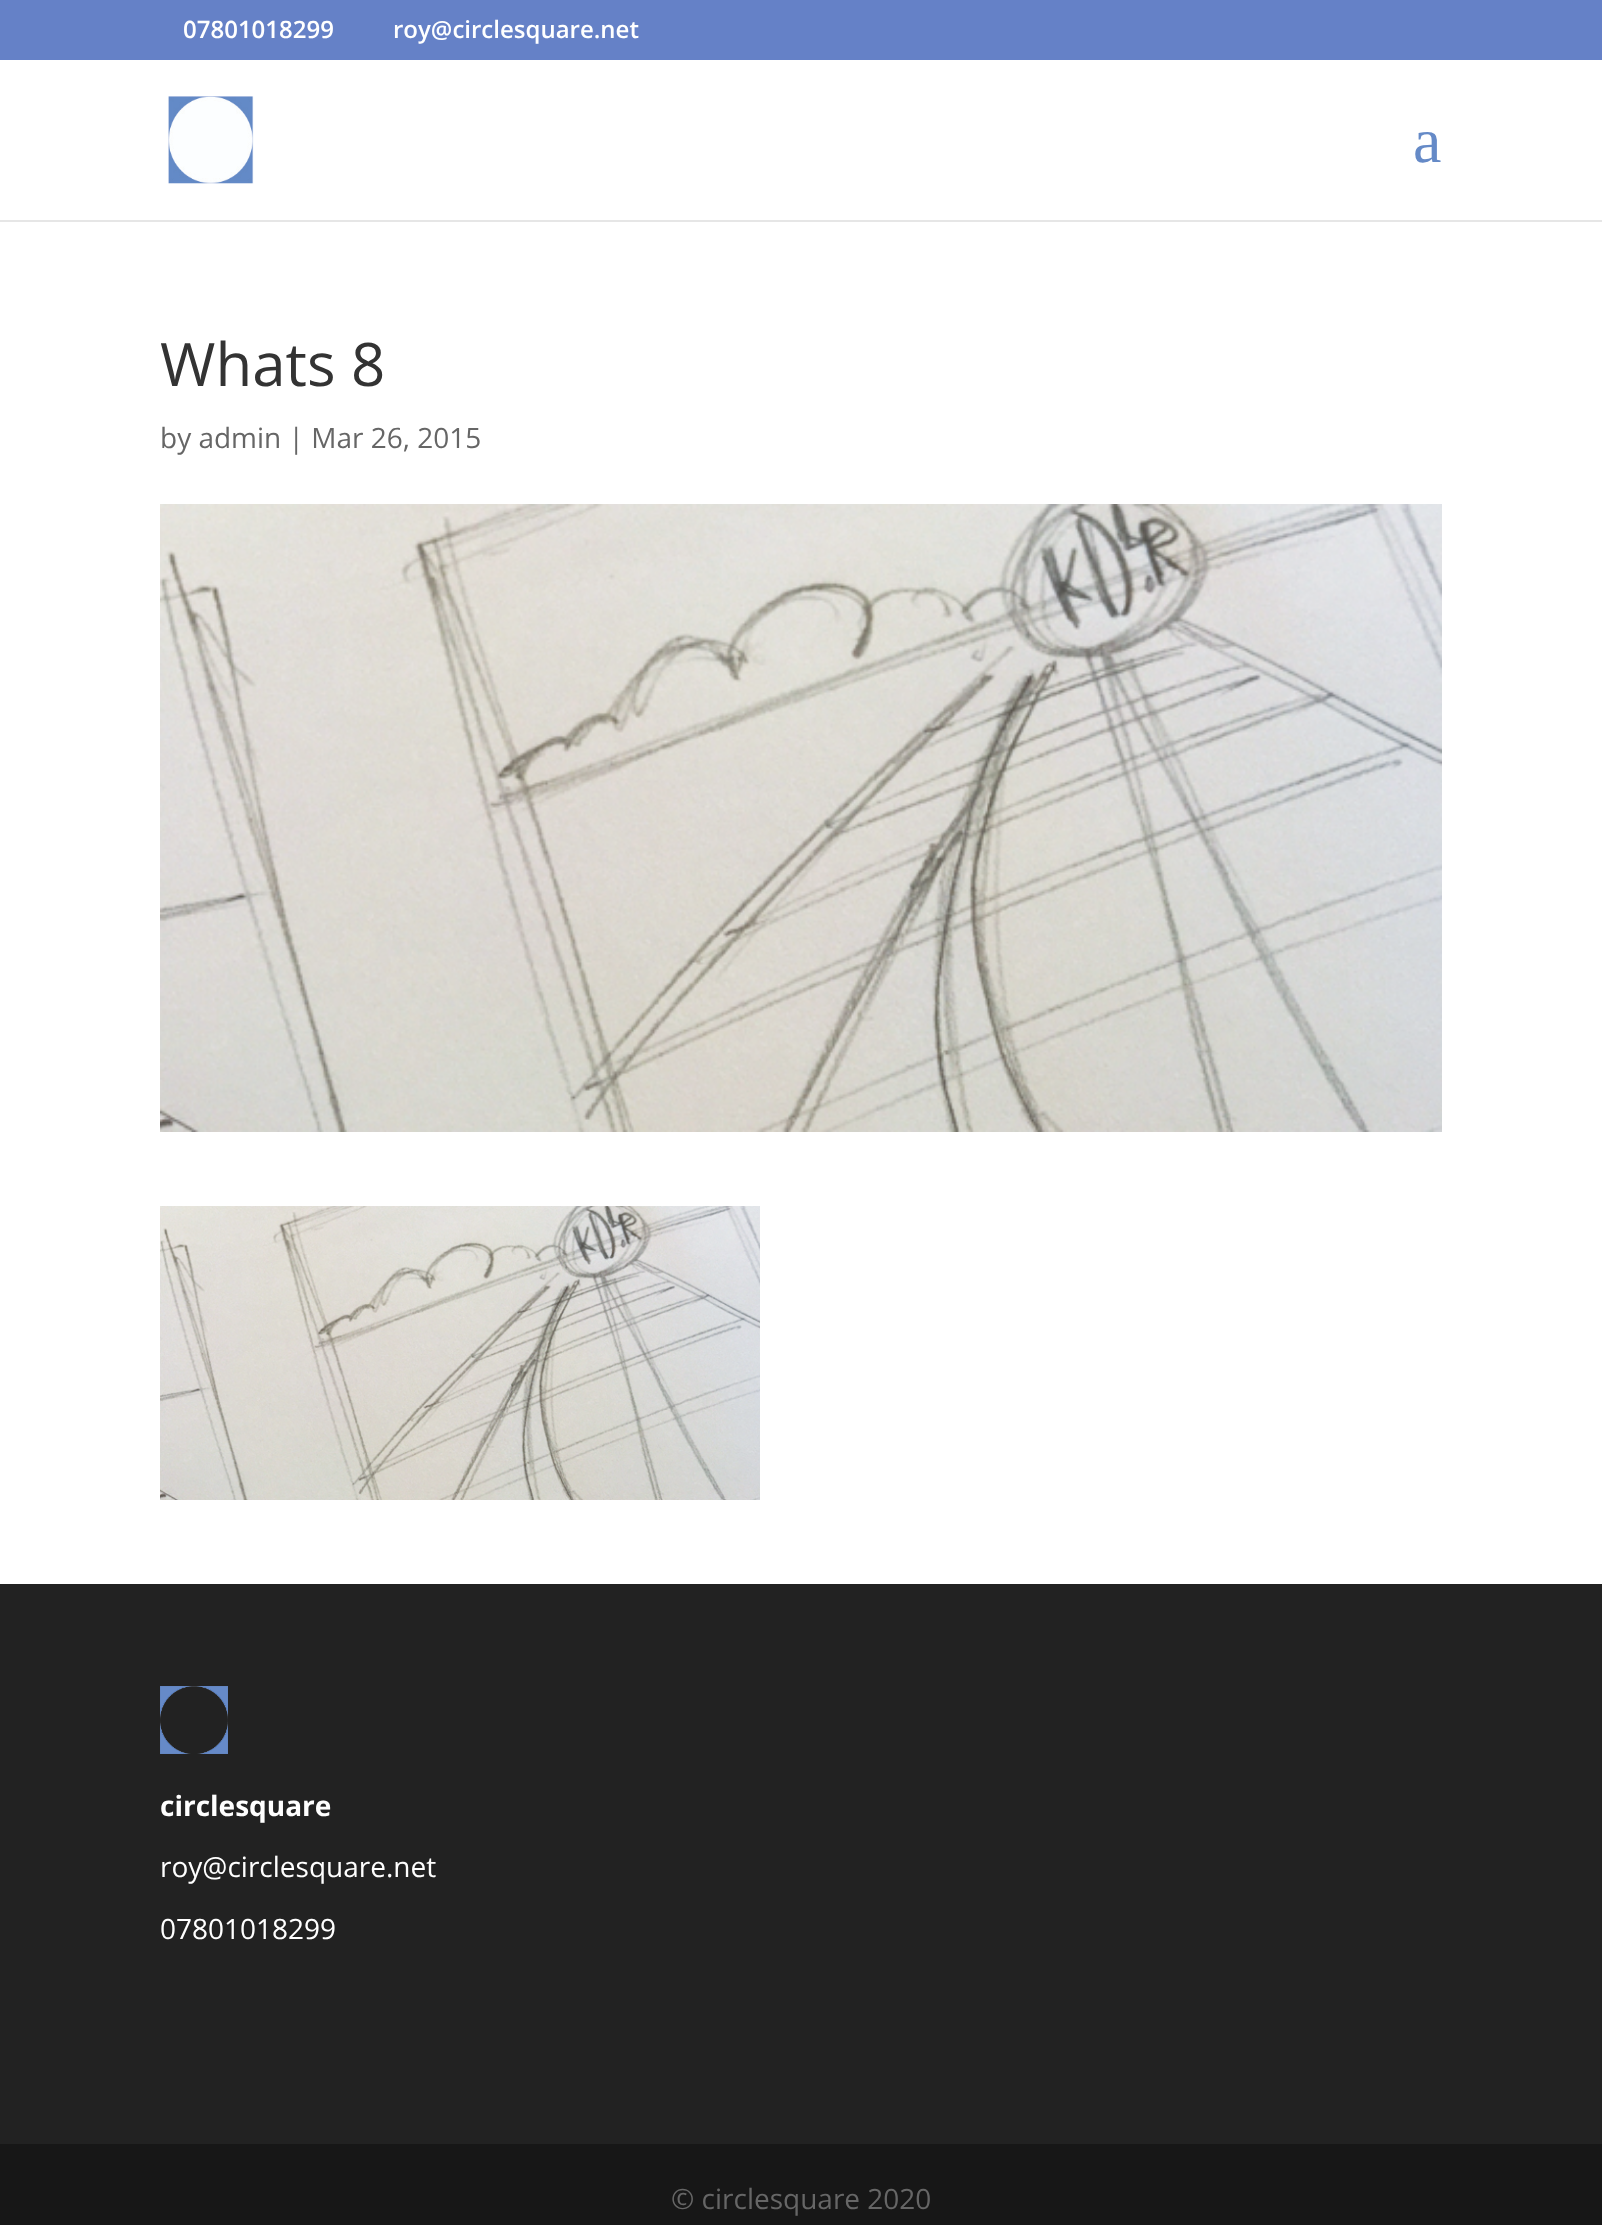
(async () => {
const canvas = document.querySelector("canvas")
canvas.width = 1602
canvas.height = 2225
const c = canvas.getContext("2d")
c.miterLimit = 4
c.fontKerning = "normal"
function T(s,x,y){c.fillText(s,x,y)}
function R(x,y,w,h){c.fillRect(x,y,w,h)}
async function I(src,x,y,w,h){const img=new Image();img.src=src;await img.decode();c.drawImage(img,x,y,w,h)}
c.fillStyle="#fff"
R(0,0,1602,2225)
c.fillStyle="#6581c7"
R(0,0,1602,60)
c.font="600 24px Open Sans"
c.fillStyle="#fff"
T("07801018299",183,38)
T("roy@circlesquare.net",393,38)
c.fillStyle="#e6e6e6"
R(0,220,1602,2)
await I("1.png",168,96,86,88)
c.font="64px Liberation Serif"
c.fillStyle="#658ac7"
T("a",1413,162)
c.font="60px Open Sans"
c.fillStyle="#333"
T("Whats 8",160,386)
c.font="28px Open Sans"
c.fillStyle="#666"
T("by admin | Mar 26, 2015",160,448)
await I("2.png",160,504,1282,628)
await I("3.png",160,1206,600,294)
c.fillStyle="#222"
R(0,1584,1602,560)
await I("4.png",160,1686,68,68)
c.font="bold 28px Open Sans"
c.fillStyle="#fff"
T("circlesquare",160,1816)
c.font="28px Open Sans"
T("roy@circlesquare.net",160,1877)
T("07801018299",160,1939)
c.fillStyle="#171717"
R(0,2144,1602,81)
c.fillStyle="#666"
T("© circlesquare 2020",671,2209)
})()
